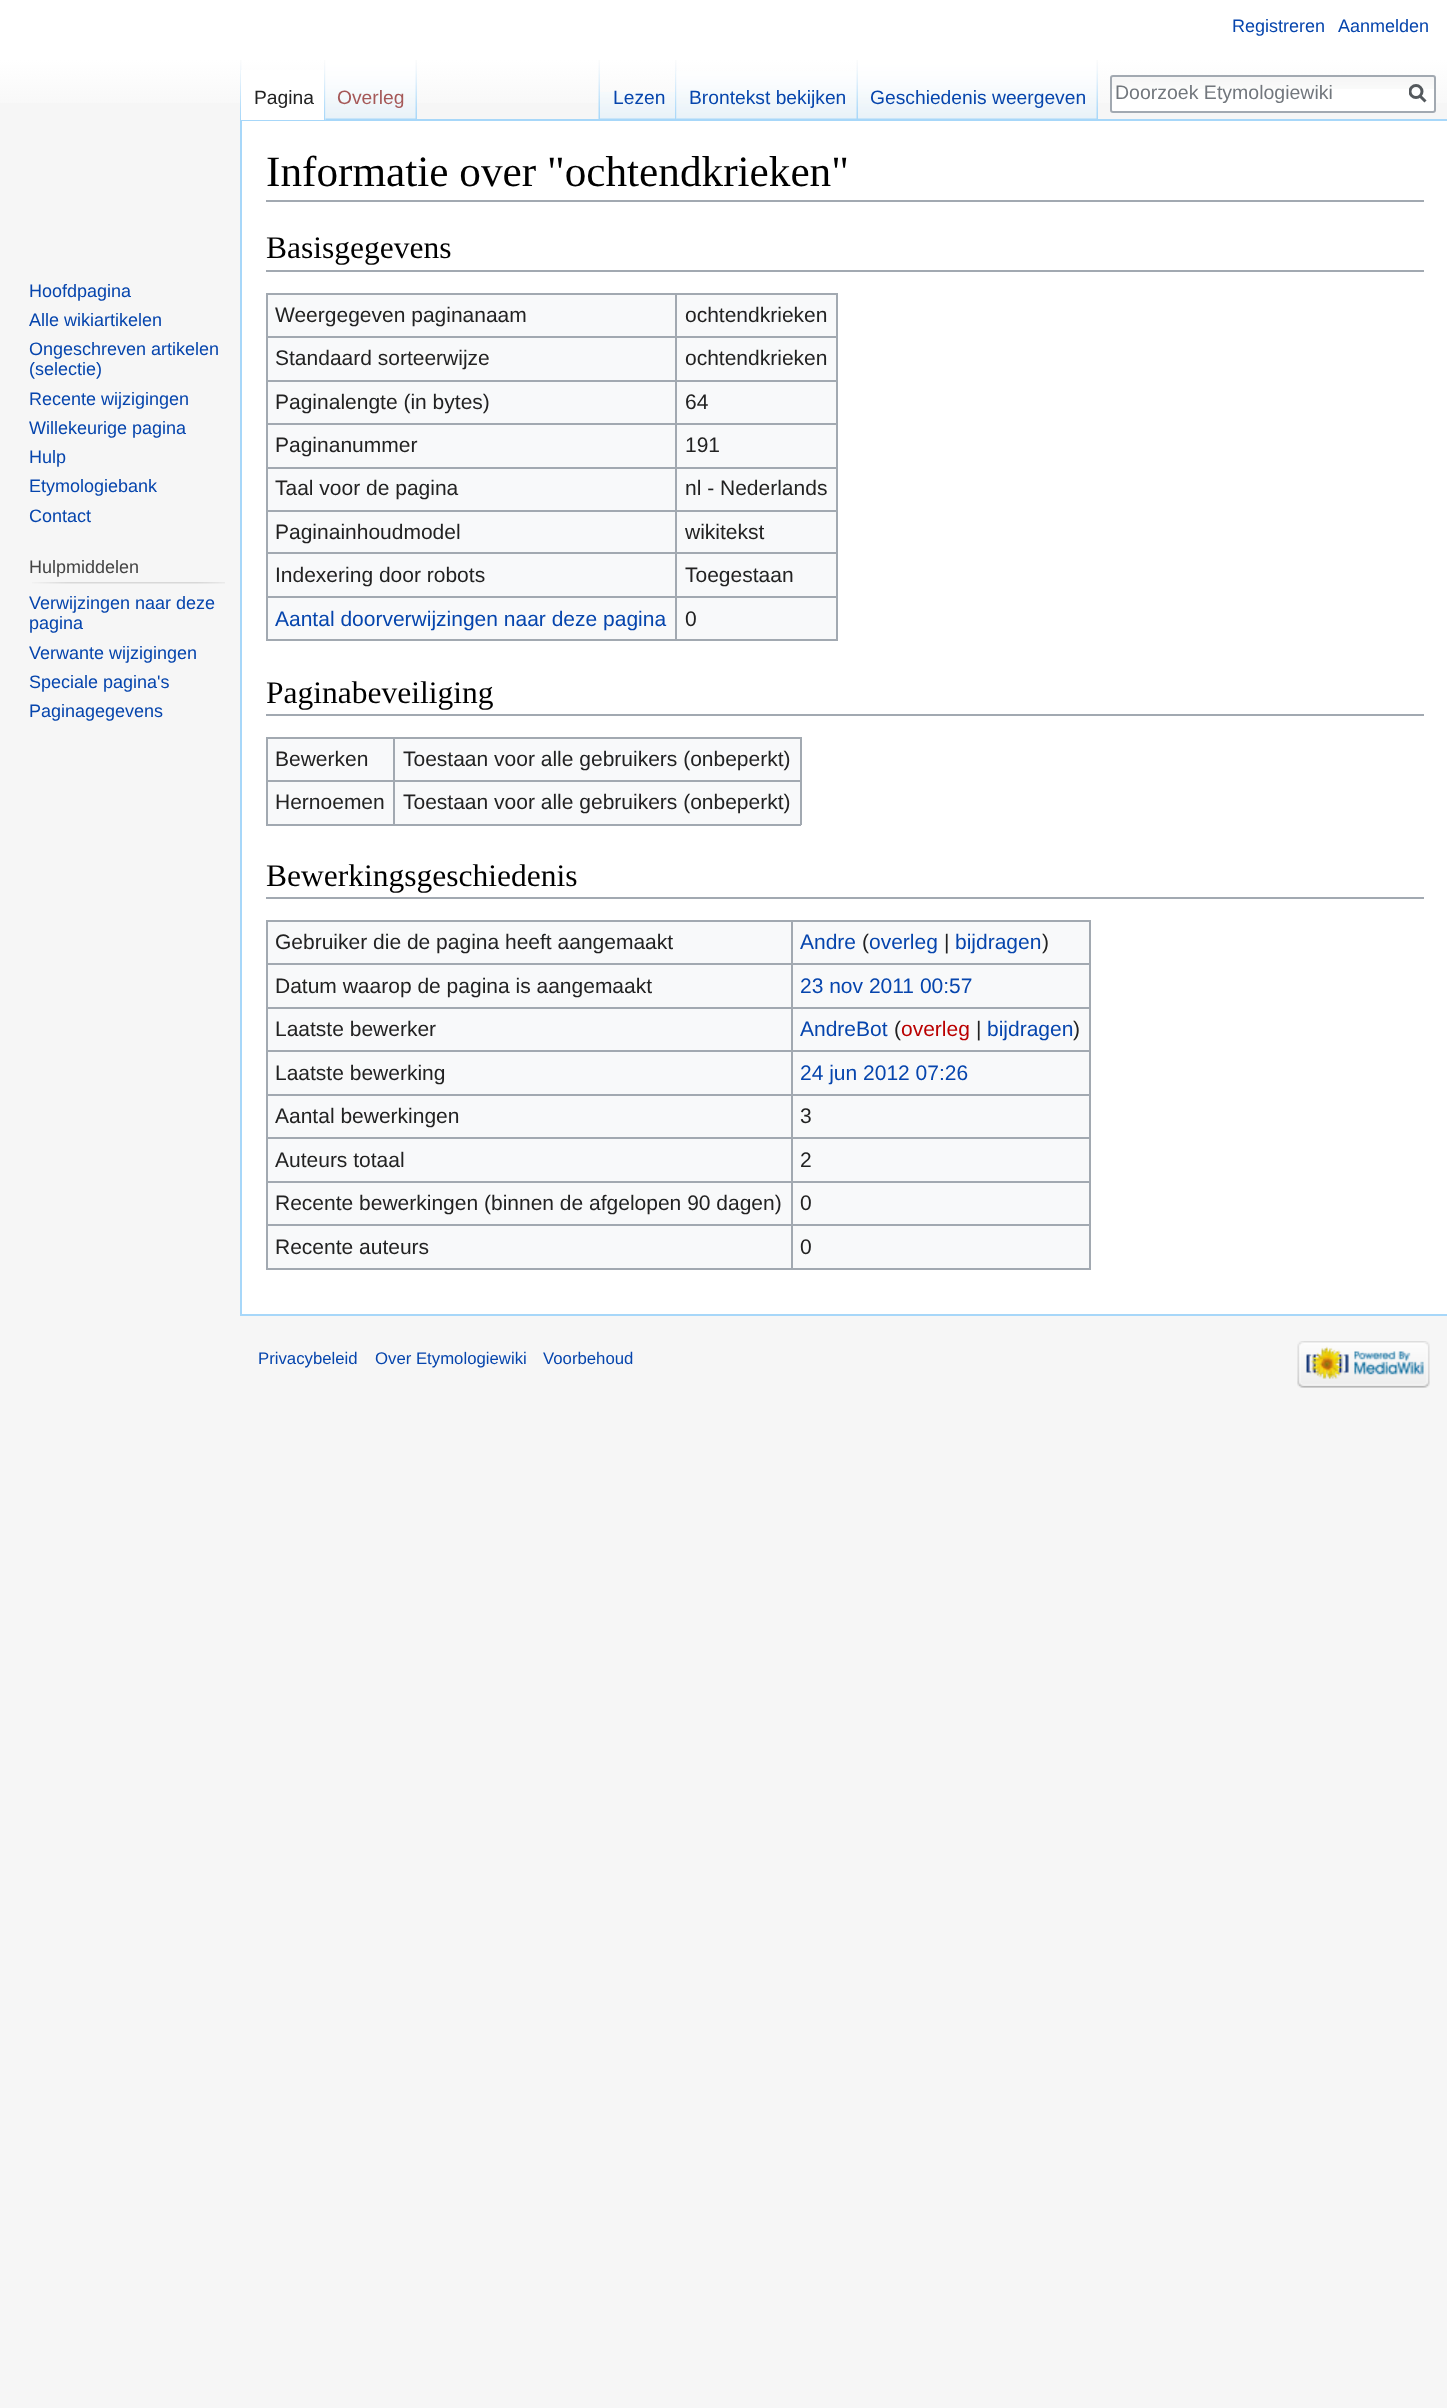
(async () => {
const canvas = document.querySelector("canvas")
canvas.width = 1447
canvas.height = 2408
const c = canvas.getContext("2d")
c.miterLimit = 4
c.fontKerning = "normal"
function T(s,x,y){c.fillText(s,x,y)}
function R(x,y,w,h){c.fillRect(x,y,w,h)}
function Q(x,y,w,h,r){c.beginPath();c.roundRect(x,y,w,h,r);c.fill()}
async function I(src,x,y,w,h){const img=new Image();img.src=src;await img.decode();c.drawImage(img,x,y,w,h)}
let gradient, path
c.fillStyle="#f6f6f6"
R(0,0,1447,2408)
gradient = c.createLinearGradient(724,0,724,120)
gradient.addColorStop(.5,"#fff")
gradient.addColorStop(1,"#f6f6f6")
c.fillStyle = gradient
R(0,0,1447,103)
c.font="18px Liberation Sans"
c.fillStyle="#0645ad"
T("Registreren",1232,32)
T("Aanmelden",1338,32)
await I("1.png",240,60,2,59)
c.fillStyle="#a7d7f9"
R(240,119,1207,2)
R(240,1314,1207,2)
R(240,119,2,1197)
c.fillStyle="#fff"
R(241,70,85,50)
await I("2.png",324,60,2,60)
c.font="19.25px Liberation Sans"
c.fillStyle="#222"
T("Pagina",254,104)
await I("3.png",325,60,92,60)
await I("4.png",415,60,2,59)
c.fillStyle="#a55858"
T("Overleg",337,104)
await I("5.png",598,60,2,59)
await I("6.png",600,92,77,27)
await I("7.png",675,60,2,59)
c.fillStyle="#0645ad"
T("Lezen",613,104)
await I("8.png",676,71,181,48)
await I("9.png",856,60,2,59)
T("Brontekst bekijken",689,104)
await I("10.png",858,60,239,59)
await I("4.png",1096,60,2,59)
T("Geschiedenis weergeven",870,104)
c.fillStyle="#fff"
Q(1110,75,326,38,3)
await I("11.png",1110,76,324,13)
c.beginPath()
c.roundRect(1111,76,324,36,2)
c.strokeStyle="#a2a9b1"
c.lineWidth=2
c.stroke()
c.font="19.5px Liberation Sans"
c.fillStyle="#72777d"
T("Doorzoek Etymologiewiki",1115,99)
path = new Path2D("M1425.5 101.5l-6-6")
c.strokeStyle="#54595d"
c.lineWidth=3
c.stroke(path)
c.save()
c.beginPath()
c.rect(1409,84,18,20)
c.clip()
c.beginPath()
c.arc(1416,91.5,6,0,7)
c.stroke()
c.restore()
c.font="18px Liberation Sans"
c.fillStyle="#0645ad"
T("Hoofdpagina",29,297)
T("Alle wikiartikelen",29,326)
T("Ongeschreven artikelen",29,355)
T("(selectie)",29,375)
T("Recente wijzigingen",29,405)
T("Willekeurige pagina",29,434)
T("Hulp",29,463)
T("Etymologiebank",29,492)
T("Contact",29,522)
c.fillStyle="#444"
T("Hulpmiddelen",29,573)
await I("12.png",32,582,193,2)
c.fillStyle="#0645ad"
T("Verwijzingen naar deze",29,609)
T("pagina",29,629)
T("Verwante wijzigingen",29,659)
T("Speciale pagina's",29,688)
T("Paginagegevens",29,717)
c.fillStyle="#fff"
R(242,121,1205,1193)
c.fillStyle="#a2a9b1"
R(266,200,1158,2)
c.font="43.25px Liberation Serif"
c.fillStyle="#000"
T("Informatie over \"ochtendkrieken\"",266,186)
c.fillStyle="#a2a9b1"
R(266,270,1158,2)
c.font="31.5px Liberation Serif"
c.fillStyle="#000"
T("Basisgegevens",266,258)
c.fillStyle="#f8f9fa"
R(268,295,568,344)
c.fillStyle="#a2a9b1"
R(266,293,571,2)
R(836,293,2,348)
R(266,639,571,2)
R(266,293,2,348)
c.font="21px Liberation Sans"
c.fillStyle="#222"
T("Weergegeven paginanaam",275,322)
c.fillStyle="#a2a9b1"
R(675,336,162,2)
R(675,380,162,2)
R(675,423,162,2)
R(675,467,162,2)
R(675,510,162,2)
R(675,552,162,2)
R(675,596,162,2)
R(675,596,2,45)
R(266,596,411,2)
R(675,552,2,45)
R(266,552,411,2)
R(675,510,2,44)
R(266,510,411,2)
R(675,467,2,45)
R(266,467,411,2)
R(675,423,2,45)
R(266,423,411,2)
R(675,380,2,45)
R(266,380,411,2)
R(675,336,2,45)
R(266,336,411,2)
R(675,293,2,45)
c.fillStyle="#222"
T("ochtendkrieken",685,322)
T("Standaard sorteerwijze",275,365)
T("ochtendkrieken",685,365)
T("Paginalengte (in bytes)",275,409)
T("64",685,409)
T("Paginanummer",275,452)
T("191",685,452)
T("Taal voor de pagina",275,495)
T("nl - Nederlands",685,495)
T("Paginainhoudmodel",275,539)
T("wikitekst",685,539)
T("Indexering door robots",275,582)
T("Toegestaan",685,582)
c.fillStyle="#0645ad"
T("Aantal doorverwijzingen naar deze pagina",275,626)
c.fillStyle="#222"
T("0",685,626)
c.fillStyle="#a2a9b1"
R(266,714,1158,2)
c.font="31.5px Liberation Serif"
c.fillStyle="#000"
T("Paginabeveiliging",266,703)
c.fillStyle="#f8f9fa"
R(268,739,532,85)
c.fillStyle="#a2a9b1"
R(266,737,535,2)
R(800,737,2,88)
R(266,824,535,2)
R(266,737,2,88)
c.font="21px Liberation Sans"
c.fillStyle="#222"
T("Bewerken",275,766)
c.fillStyle="#a2a9b1"
R(393,780,408,2)
R(393,780,2,45)
R(266,780,129,2)
R(393,737,2,45)
c.fillStyle="#222"
T("Toestaan voor alle gebruikers (onbeperkt)",403,766)
T("Hernoemen",275,809)
T("Toestaan voor alle gebruikers (onbeperkt)",403,809)
c.fillStyle="#a2a9b1"
R(266,897,1158,2)
c.font="31.5px Liberation Serif"
c.fillStyle="#000"
T("Bewerkingsgeschiedenis",266,886)
c.fillStyle="#f8f9fa"
R(268,922,821,346)
c.fillStyle="#a2a9b1"
R(266,920,825,2)
R(1089,920,2,349)
R(266,1268,825,2)
R(266,920,2,349)
c.font="21px Liberation Sans"
c.fillStyle="#222"
T("Gebruiker die de pagina heeft aangemaakt",275,949)
c.fillStyle="#a2a9b1"
R(791,963,300,2)
R(791,1007,300,2)
R(791,1050,300,2)
R(791,1094,300,2)
R(791,1137,300,2)
R(791,1181,300,2)
R(791,1224,300,2)
R(791,1224,2,45)
R(266,1224,526,2)
R(791,1181,2,45)
R(266,1181,526,2)
R(791,1137,2,45)
R(266,1137,526,2)
R(791,1094,2,45)
R(266,1094,526,2)
R(791,1050,2,45)
R(266,1050,526,2)
R(791,1007,2,45)
R(266,1007,526,2)
R(791,963,2,45)
R(266,963,526,2)
R(791,920,2,45)
c.fillStyle="#0645ad"
T("Andre",800,949)
c.fillStyle="#222"
T("(",862,949)
c.fillStyle="#0645ad"
T("overleg",869,949)
c.fillStyle="#222"
T("|",944,949)
c.fillStyle="#0645ad"
T("bijdragen",955,949)
c.fillStyle="#222"
T(")",1042,949)
T("Datum waarop de pagina is aangemaakt",275,993)
c.fillStyle="#0645ad"
T("23 nov 2011 00:57",800,993)
c.fillStyle="#222"
T("Laatste bewerker",275,1036)
c.fillStyle="#0645ad"
T("AndreBot",800,1036)
c.fillStyle="#222"
T("(",894,1036)
c.fillStyle="#ba0000"
T("overleg",901,1036)
c.fillStyle="#222"
T("|",976,1036)
c.fillStyle="#0645ad"
T("bijdragen",987,1036)
c.fillStyle="#222"
T(")",1073,1036)
T("Laatste bewerking",275,1080)
c.fillStyle="#0645ad"
T("24 jun 2012 07:26",800,1080)
c.fillStyle="#222"
T("Aantal bewerkingen",275,1123)
T("3",800,1123)
T("Auteurs totaal",275,1167)
T("2",800,1167)
T("Recente bewerkingen (binnen de afgelopen 90 dagen)",275,1210)
T("0",800,1210)
T("Recente auteurs",275,1254)
T("0",800,1254)
c.font="16.75px Liberation Sans"
c.fillStyle="#0645ad"
T("Privacybeleid",258,1364)
T("Over Etymologiewiki",375,1364)
T("Voorbehoud",543,1364)
await I("13.png",1297,1341,133,47)
})()
